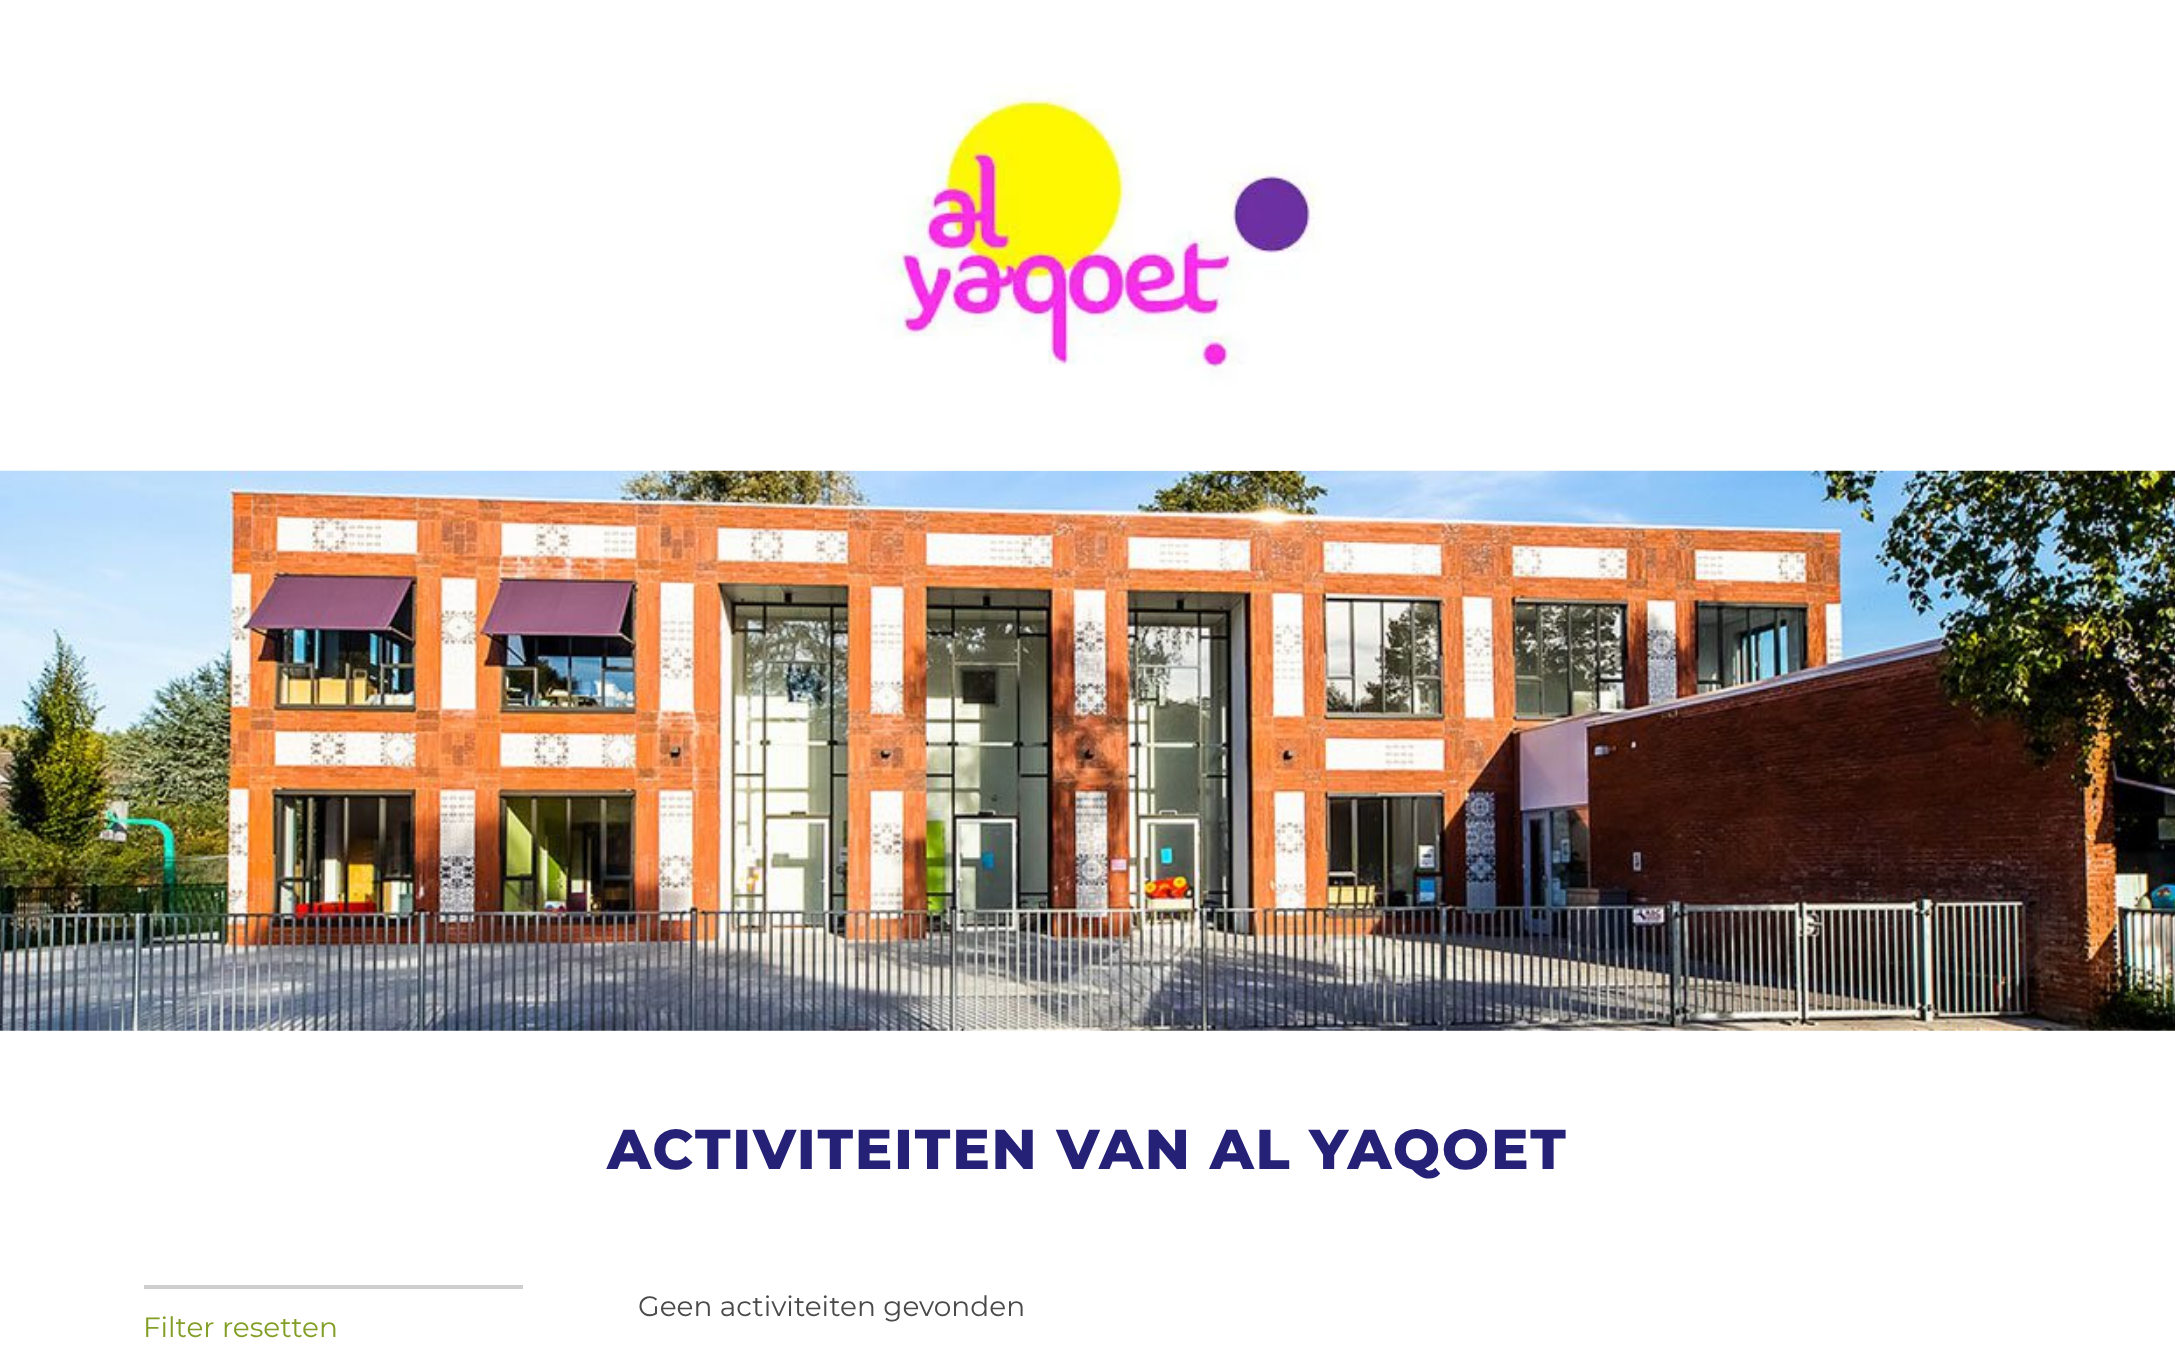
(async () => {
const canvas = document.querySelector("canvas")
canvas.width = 2175
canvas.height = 1357
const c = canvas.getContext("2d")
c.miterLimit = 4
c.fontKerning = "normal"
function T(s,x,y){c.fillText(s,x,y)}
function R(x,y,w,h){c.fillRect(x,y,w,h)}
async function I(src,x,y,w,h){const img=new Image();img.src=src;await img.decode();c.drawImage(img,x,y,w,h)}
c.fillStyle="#fff"
R(0,0,2175,1357)
await I("2.png",0,470,2175,561)
await I("1.png",855,84,467,387)
c.letterSpacing="1.75px"
c.font="800 56px Montserrat"
c.fillStyle="#252177"
T("ACTIVITEITEN VAN AL YAQOET",607,1169)
c.letterSpacing="0px"
c.font="28px Montserrat"
c.fillStyle="#4a4a4a"
T("Geen activiteiten gevonden",638,1316)
c.fillStyle="#cecece"
R(144,1285,379,4)
c.fillStyle="#839f27"
T("Filter resetten",143,1337)
})()
